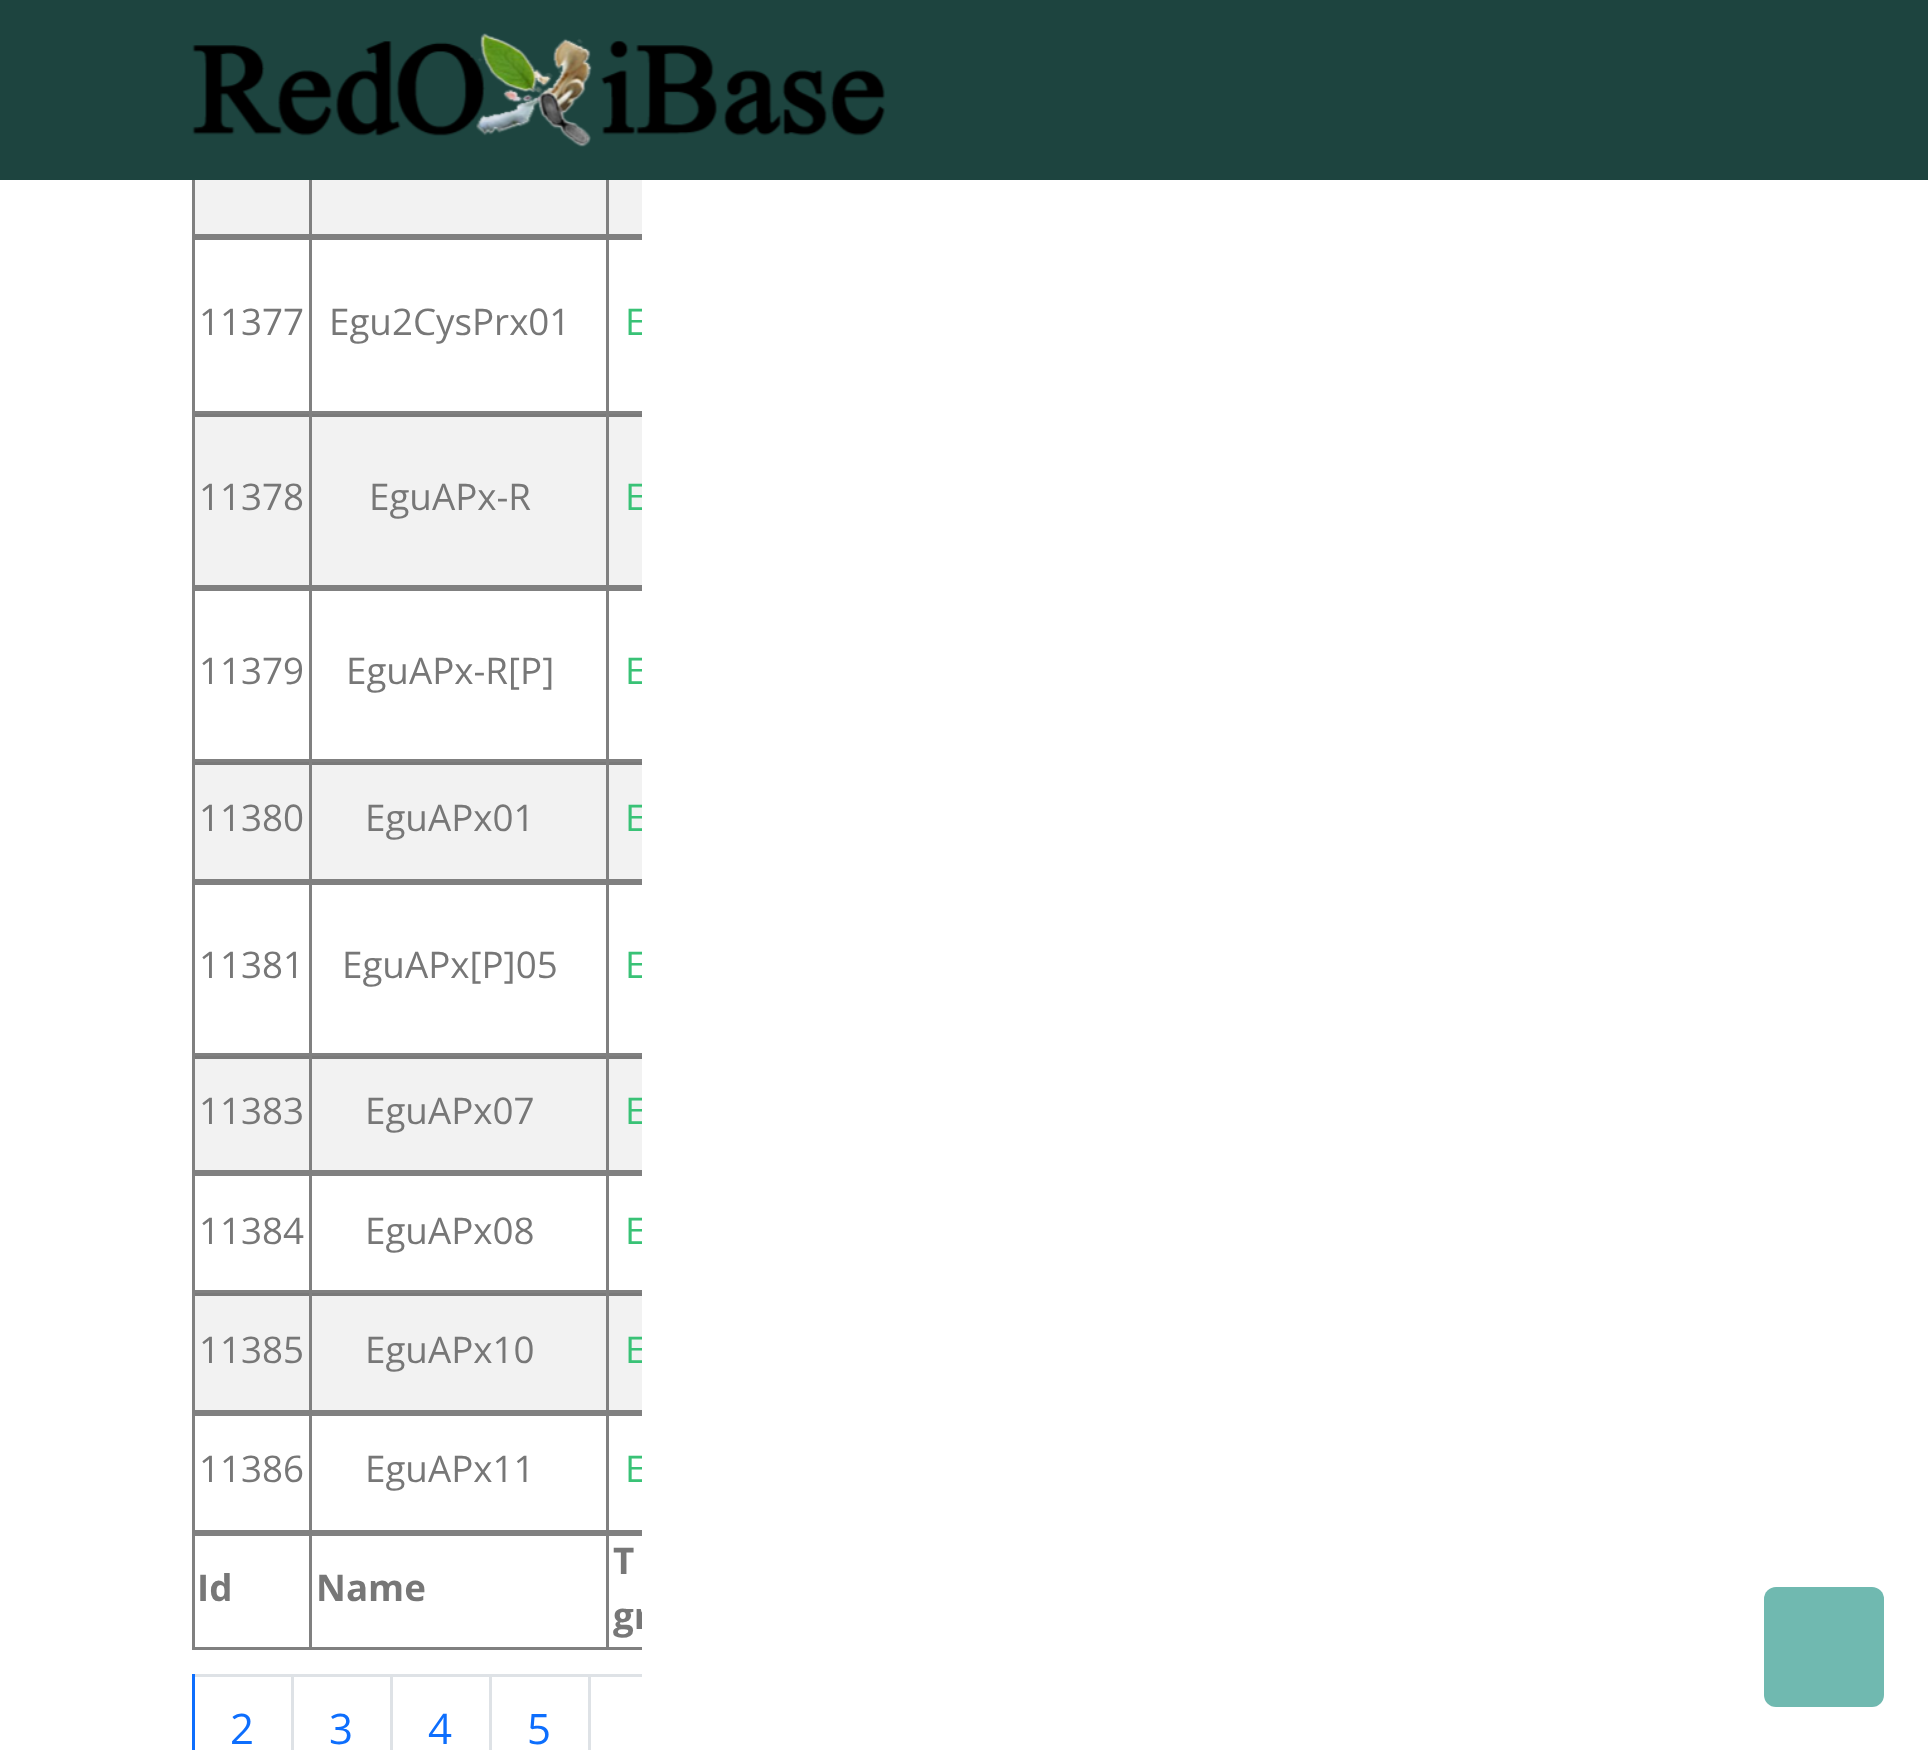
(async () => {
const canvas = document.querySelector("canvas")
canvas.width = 1928
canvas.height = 1750
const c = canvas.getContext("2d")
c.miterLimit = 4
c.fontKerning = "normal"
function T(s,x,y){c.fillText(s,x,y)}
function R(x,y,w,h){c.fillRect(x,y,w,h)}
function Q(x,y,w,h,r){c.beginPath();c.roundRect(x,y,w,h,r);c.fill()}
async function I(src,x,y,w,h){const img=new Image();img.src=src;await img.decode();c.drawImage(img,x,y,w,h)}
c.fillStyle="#fff"
R(0,0,1928,1750)
c.fillStyle="#f2f2f2"
R(609,1296,33,114)
R(312,1296,294,114)
R(195,1296,114,114)
R(609,1059,33,111)
R(312,1059,294,111)
R(195,1059,114,111)
R(609,765,33,114)
R(312,765,294,114)
R(195,765,114,114)
R(609,417,33,168)
R(312,417,294,168)
R(195,417,114,168)
R(609,180,33,54)
R(312,180,294,54)
R(195,180,114,54)
c.fillStyle="#1d443f"
R(0,0,1928,180)
await I("1.png",192,33,693,114)
c.fillStyle="#808080"
R(192,234,450,6)
R(309,180,3,57)
R(192,180,3,57)
R(606,180,3,57)
R(192,411,450,3)
R(309,237,3,177)
R(192,237,3,177)
c.font="36.75px Open Sans"
c.fillStyle="#777"
T("11377",199,335)
c.fillStyle="#808080"
R(606,237,3,177)
c.fillStyle="#777"
T("Egu2CysPrx01",329,335)
c.save()
c.beginPath()
c.rect(192,0,450,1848)
c.clip()
c.fillStyle="#39c276"
T("E",625,335)
c.restore()
c.fillStyle="#7a7a7a"
R(609,414,33,3)
R(312,414,294,3)
R(195,414,114,3)
c.fillStyle="#808080"
R(192,585,450,6)
R(309,414,3,174)
R(192,414,3,174)
c.fillStyle="#777"
T("11378",199,510)
c.fillStyle="#808080"
R(606,414,3,174)
c.fillStyle="#777"
T("EguAPx-R",369,510)
c.save()
c.beginPath()
c.rect(192,0,450,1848)
c.clip()
c.fillStyle="#39c276"
T("E",625,510)
c.restore()
c.fillStyle="#808080"
R(192,759,450,3)
R(309,588,3,174)
R(192,588,3,174)
c.fillStyle="#777"
T("11379",199,684)
c.fillStyle="#808080"
R(606,588,3,174)
c.fillStyle="#777"
T("EguAPx-R[P]",346,684)
c.save()
c.beginPath()
c.rect(192,0,450,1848)
c.clip()
c.fillStyle="#39c276"
T("E",625,684)
c.restore()
c.fillStyle="#7a7a7a"
R(609,762,33,3)
R(312,762,294,3)
R(195,762,114,3)
c.fillStyle="#808080"
R(192,879,450,6)
R(309,762,3,120)
R(192,762,3,120)
c.fillStyle="#777"
T("11380",199,831)
c.fillStyle="#808080"
R(606,762,3,120)
c.fillStyle="#777"
T("EguAPx01",365,831)
c.save()
c.beginPath()
c.rect(192,0,450,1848)
c.clip()
c.fillStyle="#39c276"
T("E",625,831)
c.restore()
c.fillStyle="#808080"
R(192,1053,450,3)
R(309,882,3,174)
R(192,882,3,174)
c.fillStyle="#777"
T("11381",199,978)
c.fillStyle="#808080"
R(606,882,3,174)
c.fillStyle="#777"
T("EguAPx[P]05",342,978)
c.save()
c.beginPath()
c.rect(192,0,450,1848)
c.clip()
c.fillStyle="#39c276"
T("E",625,978)
c.restore()
c.fillStyle="#7a7a7a"
R(609,1056,33,3)
R(312,1056,294,3)
R(195,1056,114,3)
c.fillStyle="#808080"
R(192,1170,450,6)
R(309,1056,3,117)
R(192,1056,3,117)
c.fillStyle="#777"
T("11383",199,1124)
c.fillStyle="#808080"
R(606,1056,3,117)
c.fillStyle="#777"
T("EguAPx07",365,1124)
c.save()
c.beginPath()
c.rect(192,0,450,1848)
c.clip()
c.fillStyle="#39c276"
T("E",625,1124)
c.restore()
c.fillStyle="#808080"
R(192,1290,450,3)
R(309,1173,3,120)
R(192,1173,3,120)
c.fillStyle="#777"
T("11384",199,1244)
c.fillStyle="#808080"
R(606,1173,3,120)
c.fillStyle="#777"
T("EguAPx08",365,1244)
c.save()
c.beginPath()
c.rect(192,0,450,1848)
c.clip()
c.fillStyle="#39c276"
T("E",625,1244)
c.restore()
c.fillStyle="#7a7a7a"
R(609,1293,33,3)
R(312,1293,294,3)
R(195,1293,114,3)
c.fillStyle="#808080"
R(192,1410,450,6)
R(192,1530,450,6)
R(309,1293,3,240)
R(192,1293,3,240)
c.fillStyle="#777"
T("11385",199,1363)
c.fillStyle="#808080"
R(606,1293,3,240)
c.fillStyle="#777"
T("EguAPx10",365,1363)
c.save()
c.beginPath()
c.rect(192,0,450,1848)
c.clip()
c.fillStyle="#39c276"
T("E",625,1363)
c.restore()
T("11386",199,1482)
T("EguAPx11",365,1482)
c.save()
c.beginPath()
c.rect(192,0,450,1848)
c.clip()
c.fillStyle="#39c276"
T("E",625,1482)
c.restore()
c.fillStyle="#808080"
R(192,1647,450,3)
R(309,1533,3,117)
R(192,1533,3,117)
c.font="bold 36.75px Open Sans"
c.fillStyle="#777"
T("Id",197,1601)
c.fillStyle="#808080"
R(606,1533,3,117)
c.fillStyle="#777"
T("Name",316,1601)
T("T",613,1574)
c.save()
c.beginPath()
c.rect(192,0,450,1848)
c.clip()
T("gr",613,1629)
c.restore()
c.strokeStyle="#dee2e6"
c.lineWidth=3
c.strokeRect(193.5,1675.5,99,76)
c.fillStyle="#0d6efd"
R(192,1674,3,76)
c.font="42px Open Sans"
T("2",230,1744)
c.strokeRect(292.5,1675.5,99,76)
T("3",329,1744)
c.strokeRect(391.5,1675.5,99,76)
T("4",428,1744)
c.strokeRect(490.5,1675.5,99,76)
T("5",527,1744)
c.save()
c.beginPath()
c.rect(192,0,450,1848)
c.clip()
c.strokeRect(589.5,1675.5,108,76)
c.restore()
c.fillStyle="#70b9b0"
Q(1764,1587,120,120,12)
})()
